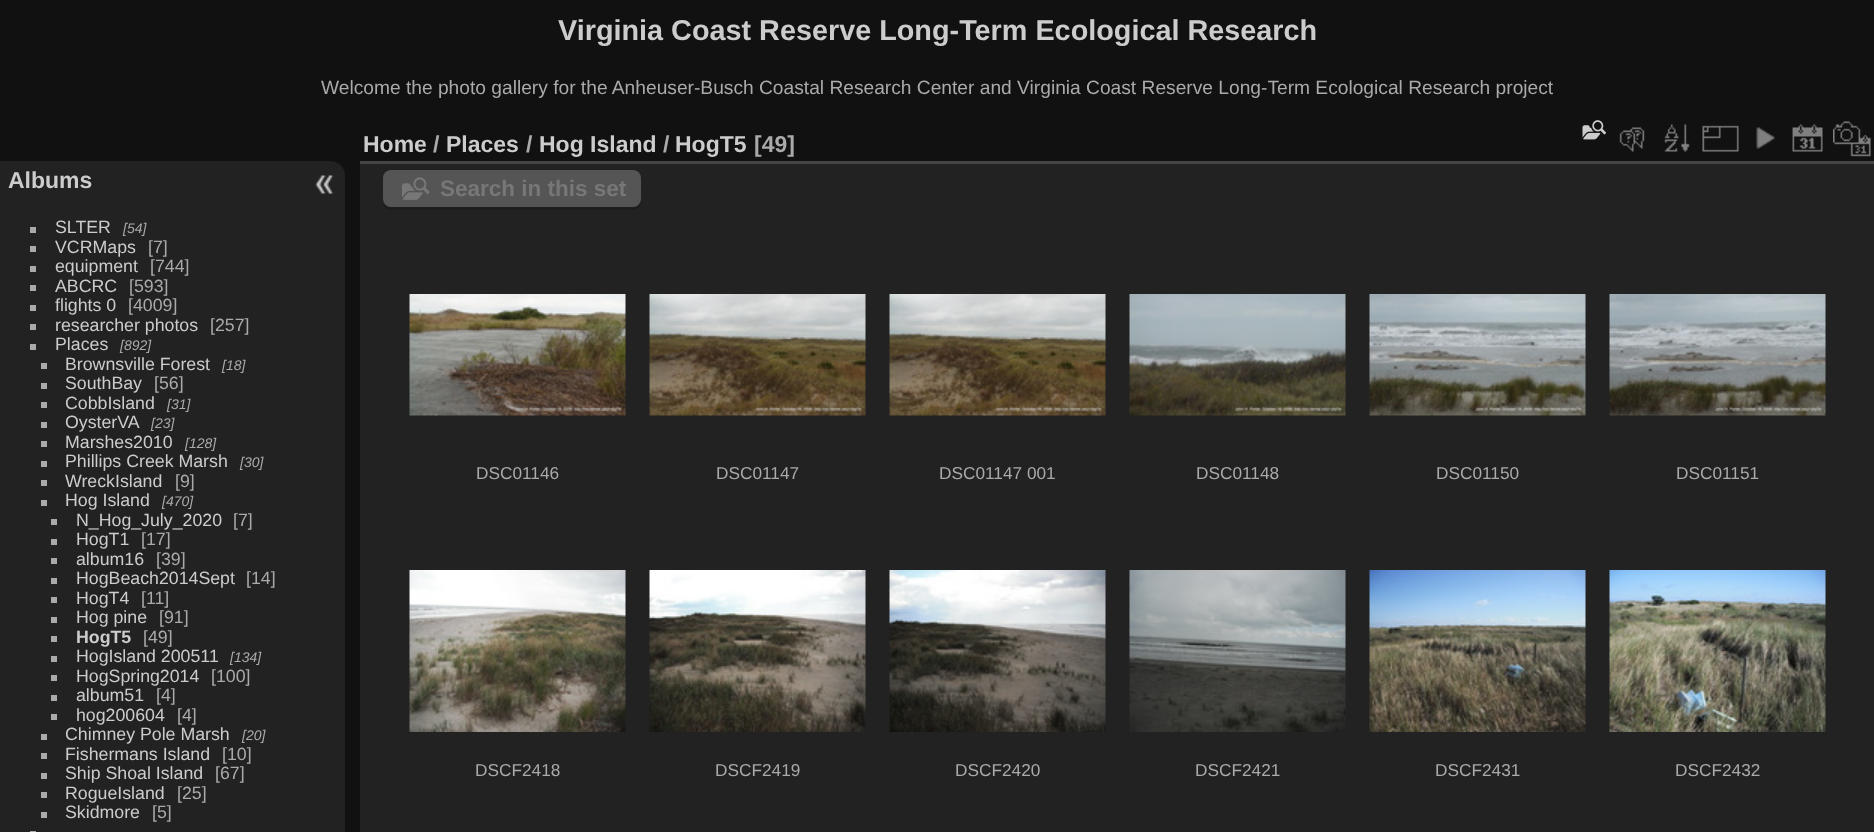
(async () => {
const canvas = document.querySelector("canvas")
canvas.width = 1874
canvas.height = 832
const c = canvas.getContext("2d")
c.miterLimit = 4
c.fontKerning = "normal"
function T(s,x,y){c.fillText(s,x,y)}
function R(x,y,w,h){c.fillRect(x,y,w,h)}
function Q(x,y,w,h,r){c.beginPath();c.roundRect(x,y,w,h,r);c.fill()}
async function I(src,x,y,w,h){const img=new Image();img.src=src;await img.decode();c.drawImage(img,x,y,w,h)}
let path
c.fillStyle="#111"
R(0,0,1874,832)
c.font="bold 28.8px Liberation Sans"
c.fillStyle="#ccc"
T("Virginia Coast Reserve Long-Term Ecological Research",558,40)
c.font="19.2px Liberation Sans"
c.fillStyle="#aaa"
T("Welcome the photo gallery for the Anheuser-Busch Coastal Research Center and Virginia Coast Reserve Long-Term Ecological Research project",321,94)
c.fillStyle="#222"
path = new Path2D("M0 161h330c8.5 0 15 6.5 15 15v656c0 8.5-6.5 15-15 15h-330z")
c.fill(path)
c.font="bold 23px Liberation Sans"
c.fillStyle="#ccc"
T("Albums",8,188)
c.fillStyle="#aaa"
R(30,227,6,6)
c.font="17.75px Liberation Sans"
c.fillStyle="#ccc"
T("SLTER",55,233)
c.font="italic 14px Liberation Sans"
c.fillStyle="#aaa"
T("[54]",123,233)
R(30,246,6,6)
c.font="17.75px Liberation Sans"
c.fillStyle="#ccc"
T("VCRMaps",55,253)
c.fillStyle="#aaa"
T("[7]",148,253)
R(30,266,6,6)
c.fillStyle="#ccc"
T("equipment",55,272)
c.fillStyle="#aaa"
T("[744]",150,272)
R(30,285,6,6)
c.fillStyle="#ccc"
T("ABCRC",55,292)
c.fillStyle="#aaa"
T("[593]",129,292)
R(30,305,6,6)
c.fillStyle="#ccc"
T("flights 0",55,311)
c.fillStyle="#aaa"
T("[4009]",128,311)
R(30,324,6,6)
c.fillStyle="#ccc"
T("researcher photos",55,331)
c.fillStyle="#aaa"
T("[257]",210,331)
R(30,344,6,6)
c.fillStyle="#ccc"
T("Places",55,350)
c.font="italic 14px Liberation Sans"
c.fillStyle="#aaa"
T("[892]",120,350)
R(41,363,6,6)
c.font="17.75px Liberation Sans"
c.fillStyle="#ccc"
T("Brownsville Forest",65,370)
c.font="italic 14px Liberation Sans"
c.fillStyle="#aaa"
T("[18]",222,370)
R(41,383,6,6)
c.font="17.75px Liberation Sans"
c.fillStyle="#ccc"
T("SouthBay",65,389)
c.fillStyle="#aaa"
T("[56]",154,389)
R(41,402,6,6)
c.fillStyle="#ccc"
T("CobbIsland",65,409)
c.font="italic 14px Liberation Sans"
c.fillStyle="#aaa"
T("[31]",167,409)
R(41,422,6,6)
c.font="17.75px Liberation Sans"
c.fillStyle="#ccc"
T("OysterVA",65,428)
c.font="italic 14px Liberation Sans"
c.fillStyle="#aaa"
T("[23]",151,428)
R(41,441,6,6)
c.font="17.75px Liberation Sans"
c.fillStyle="#ccc"
T("Marshes2010",65,448)
c.font="italic 14px Liberation Sans"
c.fillStyle="#aaa"
T("[128]",185,448)
R(41,461,6,6)
c.font="17.75px Liberation Sans"
c.fillStyle="#ccc"
T("Phillips Creek Marsh",65,467)
c.font="italic 14px Liberation Sans"
c.fillStyle="#aaa"
T("[30]",240,467)
R(41,480,6,6)
c.font="17.75px Liberation Sans"
c.fillStyle="#ccc"
T("WreckIsland",65,487)
c.fillStyle="#aaa"
T("[9]",175,487)
R(41,500,6,6)
c.fillStyle="#ccc"
T("Hog Island",65,506)
c.font="italic 14px Liberation Sans"
c.fillStyle="#aaa"
T("[470]",162,506)
R(51,519,6,6)
c.font="17.75px Liberation Sans"
c.fillStyle="#ccc"
T("N_Hog_July_2020",76,526)
c.fillStyle="#aaa"
T("[7]",233,526)
R(51,539,6,6)
c.fillStyle="#ccc"
T("HogT1",76,545)
c.fillStyle="#aaa"
T("[17]",141,545)
R(51,558,6,6)
c.fillStyle="#ccc"
T("album16",76,565)
c.fillStyle="#aaa"
T("[39]",156,565)
R(51,578,6,6)
c.fillStyle="#ccc"
T("HogBeach2014Sept",76,584)
c.fillStyle="#aaa"
T("[14]",246,584)
R(51,597,6,6)
c.fillStyle="#ccc"
T("HogT4",76,604)
c.fillStyle="#aaa"
T("[11]",141,604)
R(51,617,6,6)
c.fillStyle="#ccc"
T("Hog pine",76,623)
c.fillStyle="#aaa"
T("[91]",159,623)
R(51,636,6,6)
c.font="bold 17.75px Liberation Sans"
c.fillStyle="#ccc"
T("HogT5",76,643)
c.font="17.75px Liberation Sans"
c.fillStyle="#aaa"
T("[49]",143,643)
R(51,656,6,6)
c.fillStyle="#ccc"
T("HogIsland 200511",76,662)
c.font="italic 14px Liberation Sans"
c.fillStyle="#aaa"
T("[134]",230,662)
R(51,675,6,6)
c.font="17.75px Liberation Sans"
c.fillStyle="#ccc"
T("HogSpring2014",76,682)
c.fillStyle="#aaa"
T("[100]",211,682)
R(51,695,6,6)
c.fillStyle="#ccc"
T("album51",76,701)
c.fillStyle="#aaa"
T("[4]",156,701)
R(51,714,6,6)
c.fillStyle="#ccc"
T("hog200604",76,721)
c.fillStyle="#aaa"
T("[4]",177,721)
R(41,734,6,6)
c.fillStyle="#ccc"
T("Chimney Pole Marsh",65,740)
c.font="italic 14px Liberation Sans"
c.fillStyle="#aaa"
T("[20]",242,740)
R(41,753,6,6)
c.font="17.75px Liberation Sans"
c.fillStyle="#ccc"
T("Fishermans Island",65,760)
c.fillStyle="#aaa"
T("[10]",222,760)
R(41,773,6,6)
c.fillStyle="#ccc"
T("Ship Shoal Island",65,779)
c.fillStyle="#aaa"
T("[67]",215,779)
R(41,792,6,6)
c.fillStyle="#ccc"
T("RogueIsland",65,799)
c.fillStyle="#aaa"
T("[25]",177,799)
R(41,812,6,6)
c.fillStyle="#ccc"
T("Skidmore",65,818)
c.fillStyle="#aaa"
T("[5]",152,818)
R(30,831,6,1)
await I("1.png",315,175,19,19)
c.fillStyle="#222"
R(360,164,1514,668)
c.fillStyle="#444"
R(360,161,1514,3)
c.font="bold 23px Liberation Sans"
c.fillStyle="#ccc"
T("Home",363,152)
c.fillStyle="#aaa"
T("/",433,152)
c.fillStyle="#ccc"
T("Places",446,152)
c.fillStyle="#aaa"
T("/",526,152)
c.fillStyle="#ccc"
T("Hog Island",539,152)
c.fillStyle="#aaa"
T("/",663,152)
c.fillStyle="#ccc"
T("HogT5",675,152)
c.fillStyle="#aaa"
T("[49]",754,152)
await I("2.png",1582,120,24,20)
await I("3.png",1619,127,26,25)
await I("4.png",1664,124,26,28)
await I("5.png",1702,125,37,27)
await I("6.png",1756,127,19,22)
await I("7.png",1792,124,31,28)
await I("8.png",1833,121,38,36)
c.fillStyle="#1d1d1d"
path = new Path2D("M383 202c0 5 4 8 8 8h242c4 0 8-4 8-8v-21l-1-3v22c0 4-3 7-7 7h-243c-3 0-6-2-7-5z")
c.fill(path)
c.fillStyle="#555"
Q(383,170,258,37,8)
await I("9.png",402,177,28,23)
c.font="bold 22.5px Liberation Sans"
c.fillStyle="#777"
T("Search in this set",440,196)
await I("10.png",409,294,217,122)
c.font="17.25px Liberation Sans"
c.fillStyle="#aaa"
T("DSC01146",476,479)
await I("11.png",649,294,217,122)
T("DSC01147",716,479)
await I("12.png",889,294,217,122)
T("DSC01147 001",939,479)
await I("13.png",1129,294,217,122)
T("DSC01148",1196,479)
await I("14.png",1369,294,217,122)
T("DSC01150",1436,479)
await I("15.png",1609,294,217,122)
T("DSC01151",1676,479)
await I("16.png",409,570,217,162)
T("DSCF2418",475,776)
await I("17.png",649,570,217,162)
T("DSCF2419",715,776)
await I("18.png",889,570,217,162)
T("DSCF2420",955,776)
await I("19.png",1129,570,217,162)
T("DSCF2421",1195,776)
await I("20.png",1369,570,217,162)
T("DSCF2431",1435,776)
await I("21.png",1609,570,217,162)
T("DSCF2432",1675,776)
})()
